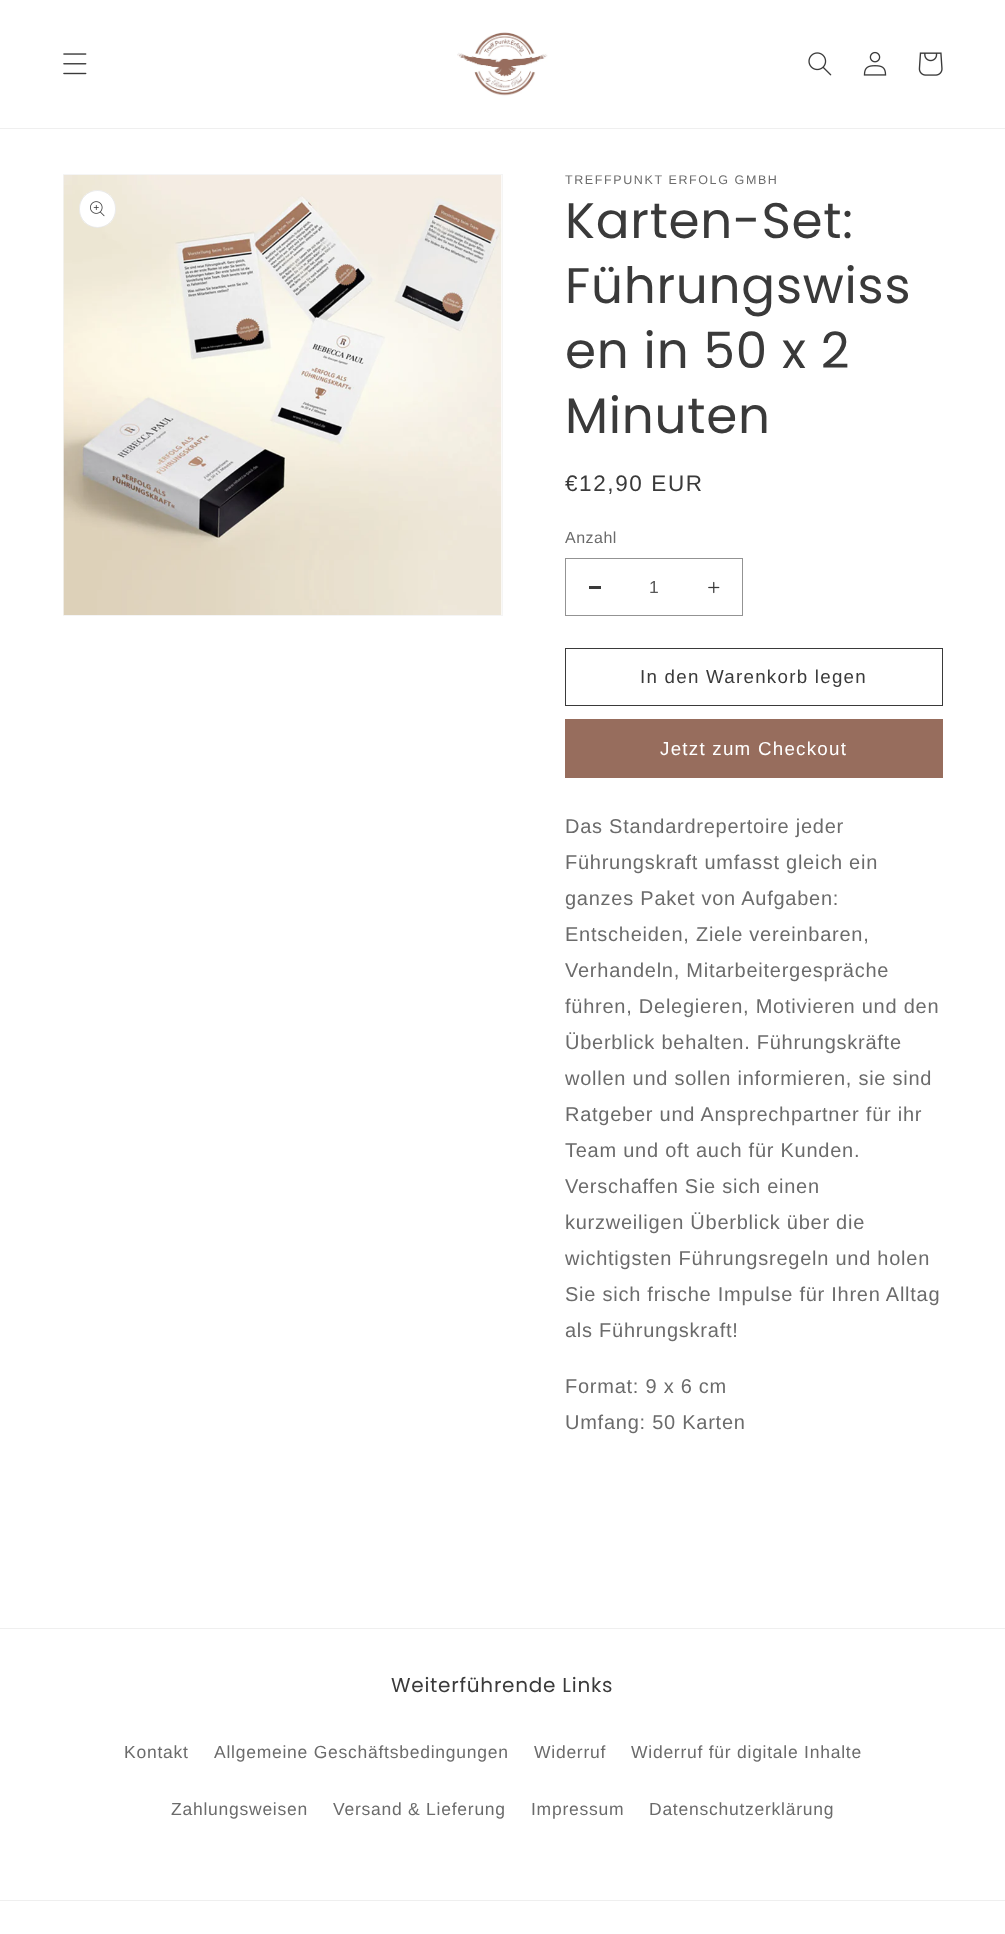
(async () => {
const canvas = document.querySelector("canvas")
canvas.width = 1005
canvas.height = 1934
const c = canvas.getContext("2d")
c.miterLimit = 4
c.fontKerning = "normal"
function T(s,x,y){c.fillText(s,x,y)}
function R(x,y,w,h){c.fillRect(x,y,w,h)}
function Q(x,y,w,h,r){c.beginPath();c.roundRect(x,y,w,h,r);c.fill()}
async function I(src,x,y,w,h){const img=new Image();img.src=src;await img.decode();c.drawImage(img,x,y,w,h)}
c.fillStyle="#fff"
R(0,0,1005,1934)
c.fillStyle="#efefef"
R(0,128,1005,1)
await I("1.png",63,53,24,22)
await I("2.png",457,32,91,64)
await I("3.png",808,52,24,24)
await I("4.png",863,51,24,25)
await I("5.png",918,52,25,24)
c.strokeStyle="#f5f5f5"
c.strokeRect(63.5,174.5,439,441)
await I("6.png",63,175,439,440)
c.fillStyle="#fff"
Q(79,190,37,38,18.5)
c.beginPath()
c.roundRect(79.5,190.5,36,37,18)
c.strokeStyle="#3a3a3a1a"
c.stroke()
await I("7.png",90,201,15,16)
c.letterSpacing="1.6px"
c.font="12.5px Liberation Sans"
c.fillStyle="#6b6b6b"
T("TREFFPUNKT ERFOLG GMBH",565,184)
c.letterSpacing="0.75px"
c.font="50px Poppins"
c.fillStyle="#3a3a3a"
T("Karten-Set:",565,238)
T("Führungswiss",565,303)
T("en in 50 x 2",565,368)
T("Minuten",565,433)
c.letterSpacing="1.6px"
c.font="22.5px Liberation Sans"
T("€12,90 EUR",565,491)
c.letterSpacing="0.5px"
c.font="16px Liberation Sans"
c.fillStyle="#6b6b6b"
T("Anzahl",565,543)
c.fillStyle="#3a3a3a"
R(589,586,12,3)
await I("8.png",708,581,12,13)
c.strokeStyle="#939393"
c.strokeRect(565.5,558.5,177,57)
c.letterSpacing="0px"
c.font="17.5px Liberation Sans"
c.fillStyle="#585858"
T("1",649,593)
c.strokeStyle="#3a3a3a"
c.strokeRect(565.5,648.5,377,57)
c.letterSpacing="1.25px"
c.font="18.75px Liberation Sans"
c.fillStyle="#3a3a3a"
T("In den Warenkorb legen",640,683)
c.fillStyle="#976d5d"
R(565,719,378,59)
c.fillStyle="#fff"
T("Jetzt zum Checkout",660,755)
c.letterSpacing="0.75px"
c.font="20px Liberation Sans"
c.fillStyle="#6b6b6b"
T("Das Standardrepertoire jeder",565,833)
T("Führungskraft umfasst gleich ein",565,869)
T("ganzes Paket von Aufgaben:",565,905)
T("Entscheiden, Ziele vereinbaren,",565,941)
T("Verhandeln, Mitarbeitergespräche",565,977)
T("führen, Delegieren, Motivieren und den",565,1013)
T("Überblick behalten. Führungskräfte",565,1049)
T("wollen und sollen informieren, sie sind",565,1085)
T("Ratgeber und Ansprechpartner für ihr",565,1121)
T("Team und oft auch für Kunden.",565,1157)
T("Verschaffen Sie sich einen",565,1193)
T("kurzweiligen Überblick über die",565,1229)
T("wichtigsten Führungsregeln und holen",565,1265)
T("Sie sich frische Impulse für Ihren Alltag",565,1301)
T("als Führungskraft!",565,1337)
T("Format: 9 x 6 cm",565,1393)
T("Umfang: 50 Karten",565,1429)
c.fillStyle="#efefef"
R(0,1628,1005,1)
c.font="20px Poppins"
c.fillStyle="#3a3a3a"
T("Weiterführende Links",391,1692)
c.font="17.5px Liberation Sans"
c.fillStyle="#6b6b6b"
T("Kontakt",124,1758)
T("Allgemeine Geschäftsbedingungen",214,1758)
T("Widerruf",534,1758)
T("Widerruf für digitale Inhalte",631,1758)
T("Zahlungsweisen",171,1815)
T("Versand & Lieferung",333,1815)
T("Impressum",531,1815)
T("Datenschutzerklärung",649,1815)
c.fillStyle="#efefef"
R(0,1900,1005,1)
})()
